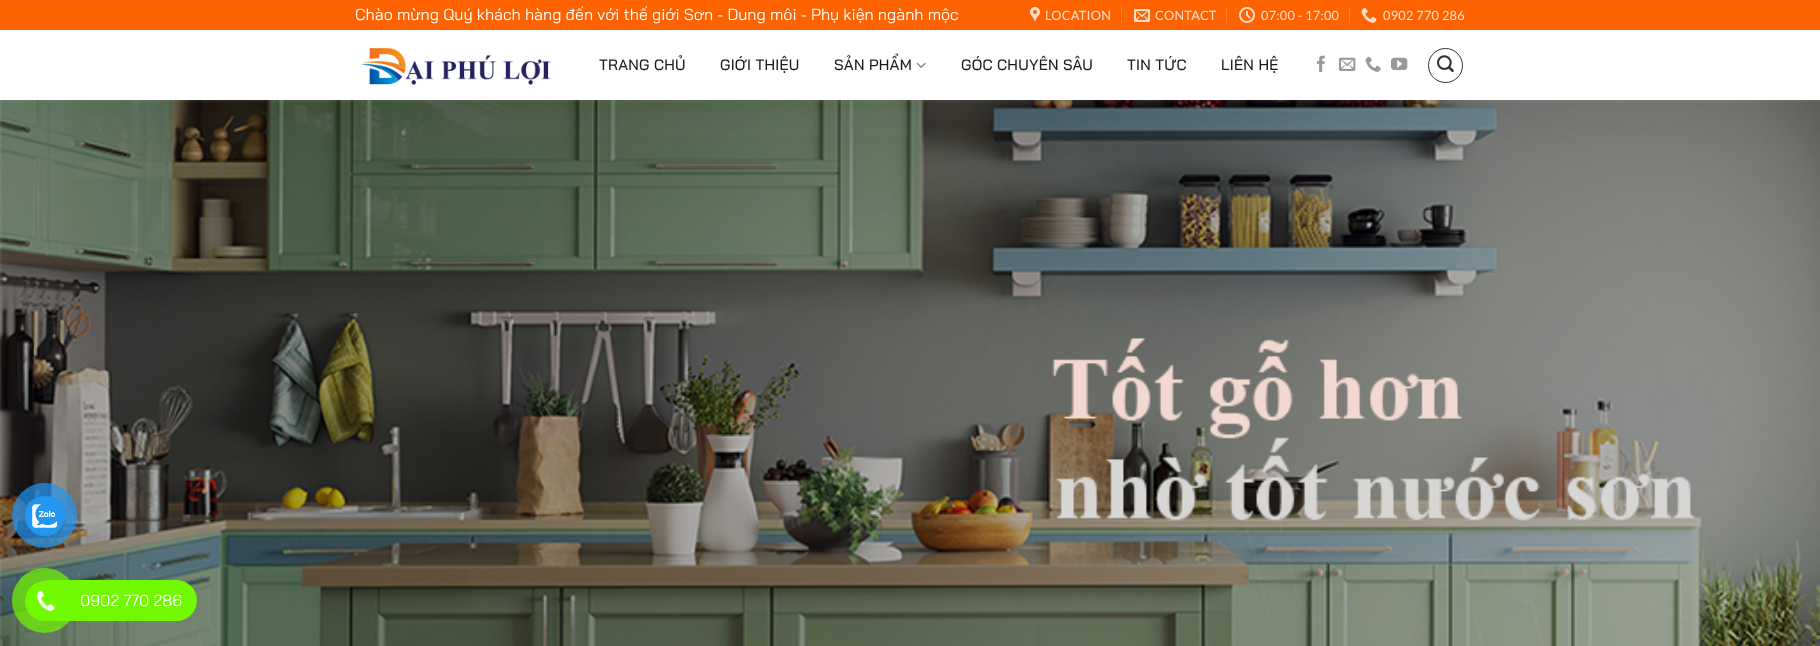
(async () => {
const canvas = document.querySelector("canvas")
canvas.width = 1820
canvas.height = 646
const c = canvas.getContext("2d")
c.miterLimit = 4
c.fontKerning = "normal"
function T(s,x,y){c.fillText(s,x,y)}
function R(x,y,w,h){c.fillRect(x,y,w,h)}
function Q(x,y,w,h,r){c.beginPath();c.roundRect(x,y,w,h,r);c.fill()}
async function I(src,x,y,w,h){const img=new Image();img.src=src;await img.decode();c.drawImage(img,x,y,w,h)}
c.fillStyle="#fff"
R(0,0,1820,646)
c.fillStyle="#ff6200"
R(0,0,1820,30)
c.font="16px Bai Jamjuree"
c.fillStyle="#fff"
T("Chào mừng Quý khách hàng đến với thế giới Sơn - Dung môi - Phụ kiện ngành mộc",355,20)
await I("1.png",1030,7,10,16)
c.letterSpacing="0.25px"
c.font="12.75px Lato"
c.fillStyle="#ffe0cc"
T("LOCATION",1045,20)
c.fillStyle="#ff8133"
R(1121,8,1,15)
await I("2.png",1134,9,16,13)
c.fillStyle="#ffe0cc"
T("CONTACT",1155,20)
c.fillStyle="#ff8133"
R(1226,8,1,15)
await I("3.png",1239,7,16,16)
c.fillStyle="#ffe0cc"
T("07:00 - 17:00",1261,20)
c.fillStyle="#ff8133"
R(1349,8,1,15)
await I("4.png",1361,8,16,15)
c.fillStyle="#ffe0cc"
T("0902 770 286",1383,20)
await I("5.png",361,48,190,37)
c.font="500 15px Bai Jamjuree"
c.fillStyle="#1c1b1b"
T("TRANG CHỦ",599,70)
T("GIỚI THIỆU",720,70)
T("SẢN PHẨM",834,70)
await I("6.png",916,62,10,6)
T("GÓC CHUYÊN SÂU",961,70)
T("TIN TỨC",1127,70)
T("LIÊN HỆ",1221,70)
await I("7.png",1317,55,8,17)
await I("8.png",1339,57,17,14)
await I("9.png",1365,56,16,16)
await I("10.png",1391,57,17,13)
c.beginPath()
c.arc(1445.5,65.5,17,0,7)
c.strokeStyle="#333"
c.stroke()
await I("11.png",1437,55,17,17)
await I("12.png",0,100,1820,546)
c.fillStyle="#3333331a"
R(355,100,1110,1)
c.fillStyle="#2196f3b3"
c.beginPath()
c.arc(44.5,515.5,32.5,0,7)
c.fill()
c.fillStyle="#2196f3"
c.beginPath()
c.arc(45,516,20,0,7)
c.fill()
await I("13.png",32,504,26,24)
c.fillStyle="#70f900"
Q(30,580,167,41,20.5)
c.fillStyle="#70f900b3"
c.beginPath()
c.arc(44.5,600.5,32.5,0,7)
c.fill()
c.fillStyle="#70f900"
c.beginPath()
c.arc(45,601,20,0,7)
c.fill()
await I("14.png",36,590,19,22)
c.letterSpacing="0px"
c.font="16px Bai Jamjuree"
c.fillStyle="#fff"
T("0902 770 286",80,606)
})()
